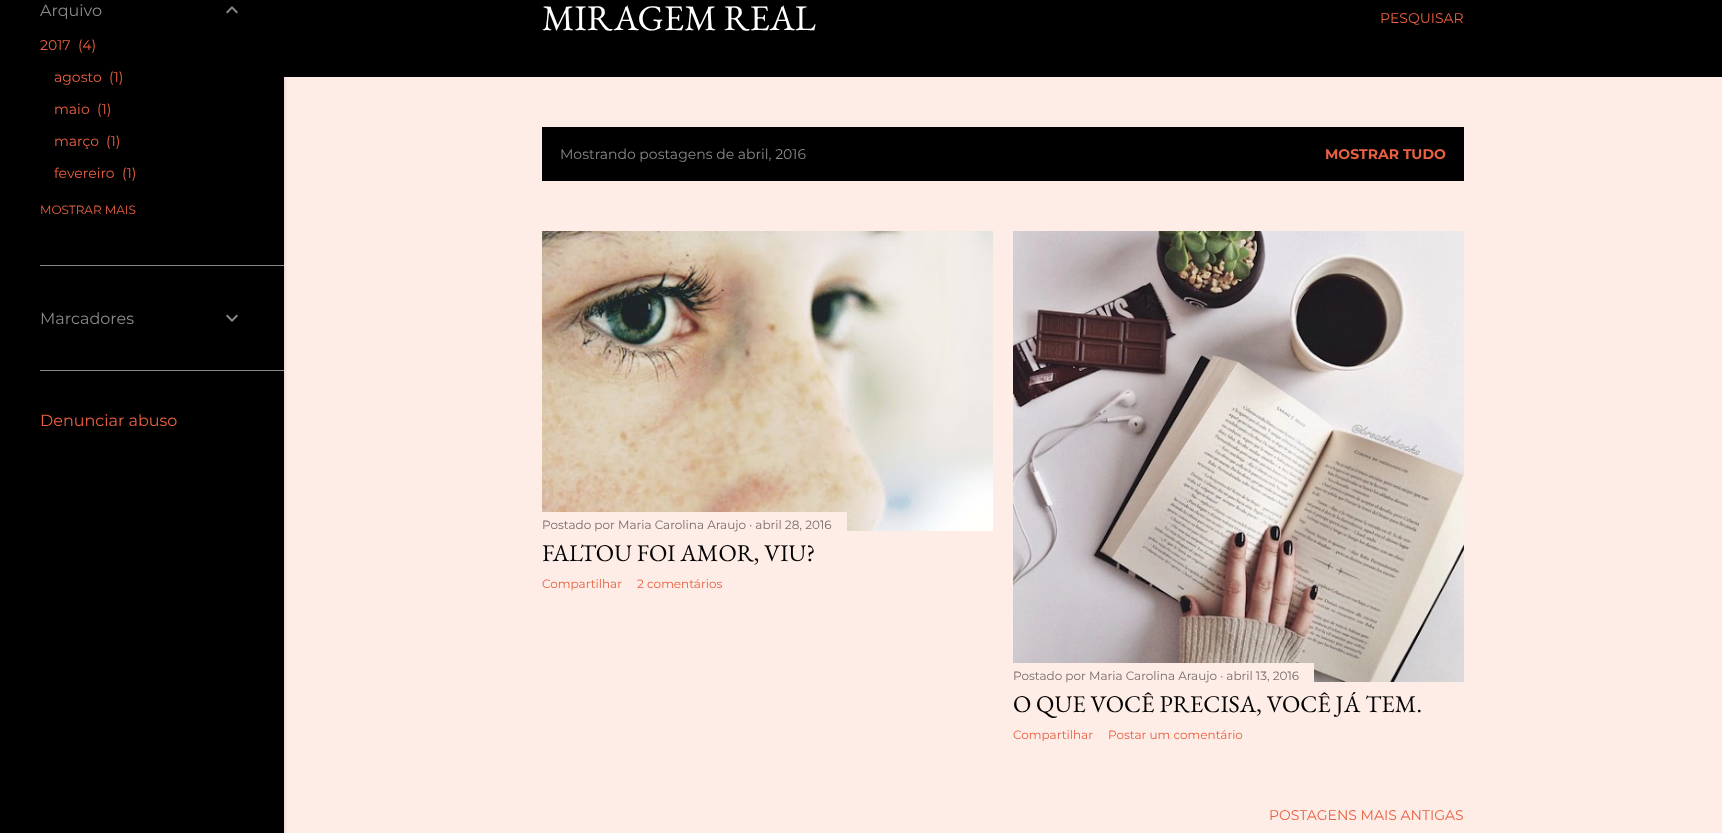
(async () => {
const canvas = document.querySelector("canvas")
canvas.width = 1722
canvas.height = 833
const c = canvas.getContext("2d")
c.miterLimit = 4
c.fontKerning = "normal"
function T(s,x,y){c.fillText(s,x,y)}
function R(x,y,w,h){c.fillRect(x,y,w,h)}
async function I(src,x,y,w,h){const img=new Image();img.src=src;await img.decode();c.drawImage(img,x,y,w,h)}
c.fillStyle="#feece7"
R(0,0,1722,833)
c.fillStyle="#000"
R(284,0,1438,77)
c.fillStyle="#0000001a"
c.filter="blur(1.5px)"
c.beginPath()
c.rect(1,-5,284,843)
c.fill()
c.filter="none"
c.fillStyle="#000"
R(0,0,284,833)
c.font="16px Montserrat"
c.fillStyle="#898989"
T("Arquivo",40,16)
await I("1.png",226,6,12,8)
c.font="14px Montserrat"
c.fillStyle="#ea6041"
T("2017",40,50)
T("(4)",78,50)
T("agosto",54,82)
T("(1)",109,82)
T("maio",54,114)
T("(1)",97,114)
T("março",54,146)
T("(1)",106,146)
T("fevereiro",54,178)
T("(1)",122,178)
c.font="12px Montserrat"
T("MOSTRAR MAIS",40,214)
c.fillStyle="#898989"
R(40,265,244,1)
c.font="16px Montserrat"
T("Marcadores",40,324)
await I("2.png",226,314,12,8)
R(40,370,244,1)
c.fillStyle="#ea6041"
T("Denunciar abuso",40,426)
c.font="36px EB Garamond"
c.fillStyle="#fff"
T("MIRAGEM REAL",542,30)
c.font="14px Montserrat"
c.fillStyle="#ea6041"
T("PESQUISAR",1380,23)
c.fillStyle="#000"
R(542,127,922,54)
c.fillStyle="#898989"
T("Mostrando postagens de abril, 2016",560,159)
c.font="bold 14px Montserrat"
c.fillStyle="#ea6041"
T("MOSTRAR TUDO",1325,159)
await I("3.png",542,231,451,300)
c.fillStyle="#feece7"
R(542,512,305,19)
c.font="12px Montserrat"
c.fillStyle="#766d6b"
T("Postado por Maria Carolina Araujo · abril 28, 2016",542,529)
c.font="24px EB Garamond"
c.fillStyle="#000"
T("FALTOU FOI AMOR, VIU?",542,561)
c.font="12px Montserrat"
c.fillStyle="#ea6041"
T("Compartilhar",542,588)
T("2 comentários",637,588)
await I("4.png",1013,231,451,451)
c.fillStyle="#feece7"
R(1013,663,301,19)
c.fillStyle="#766d6b"
T("Postado por Maria Carolina Araujo · abril 13, 2016",1013,680)
c.font="24px EB Garamond"
c.fillStyle="#000"
T("O QUE VOCÊ PRECISA, VOCÊ JÁ TEM.",1013,712)
c.font="12px Montserrat"
c.fillStyle="#ea6041"
T("Compartilhar",1013,739)
T("Postar um comentário",1108,739)
c.font="14px Montserrat"
T("POSTAGENS MAIS ANTIGAS",1269,820)
})()
